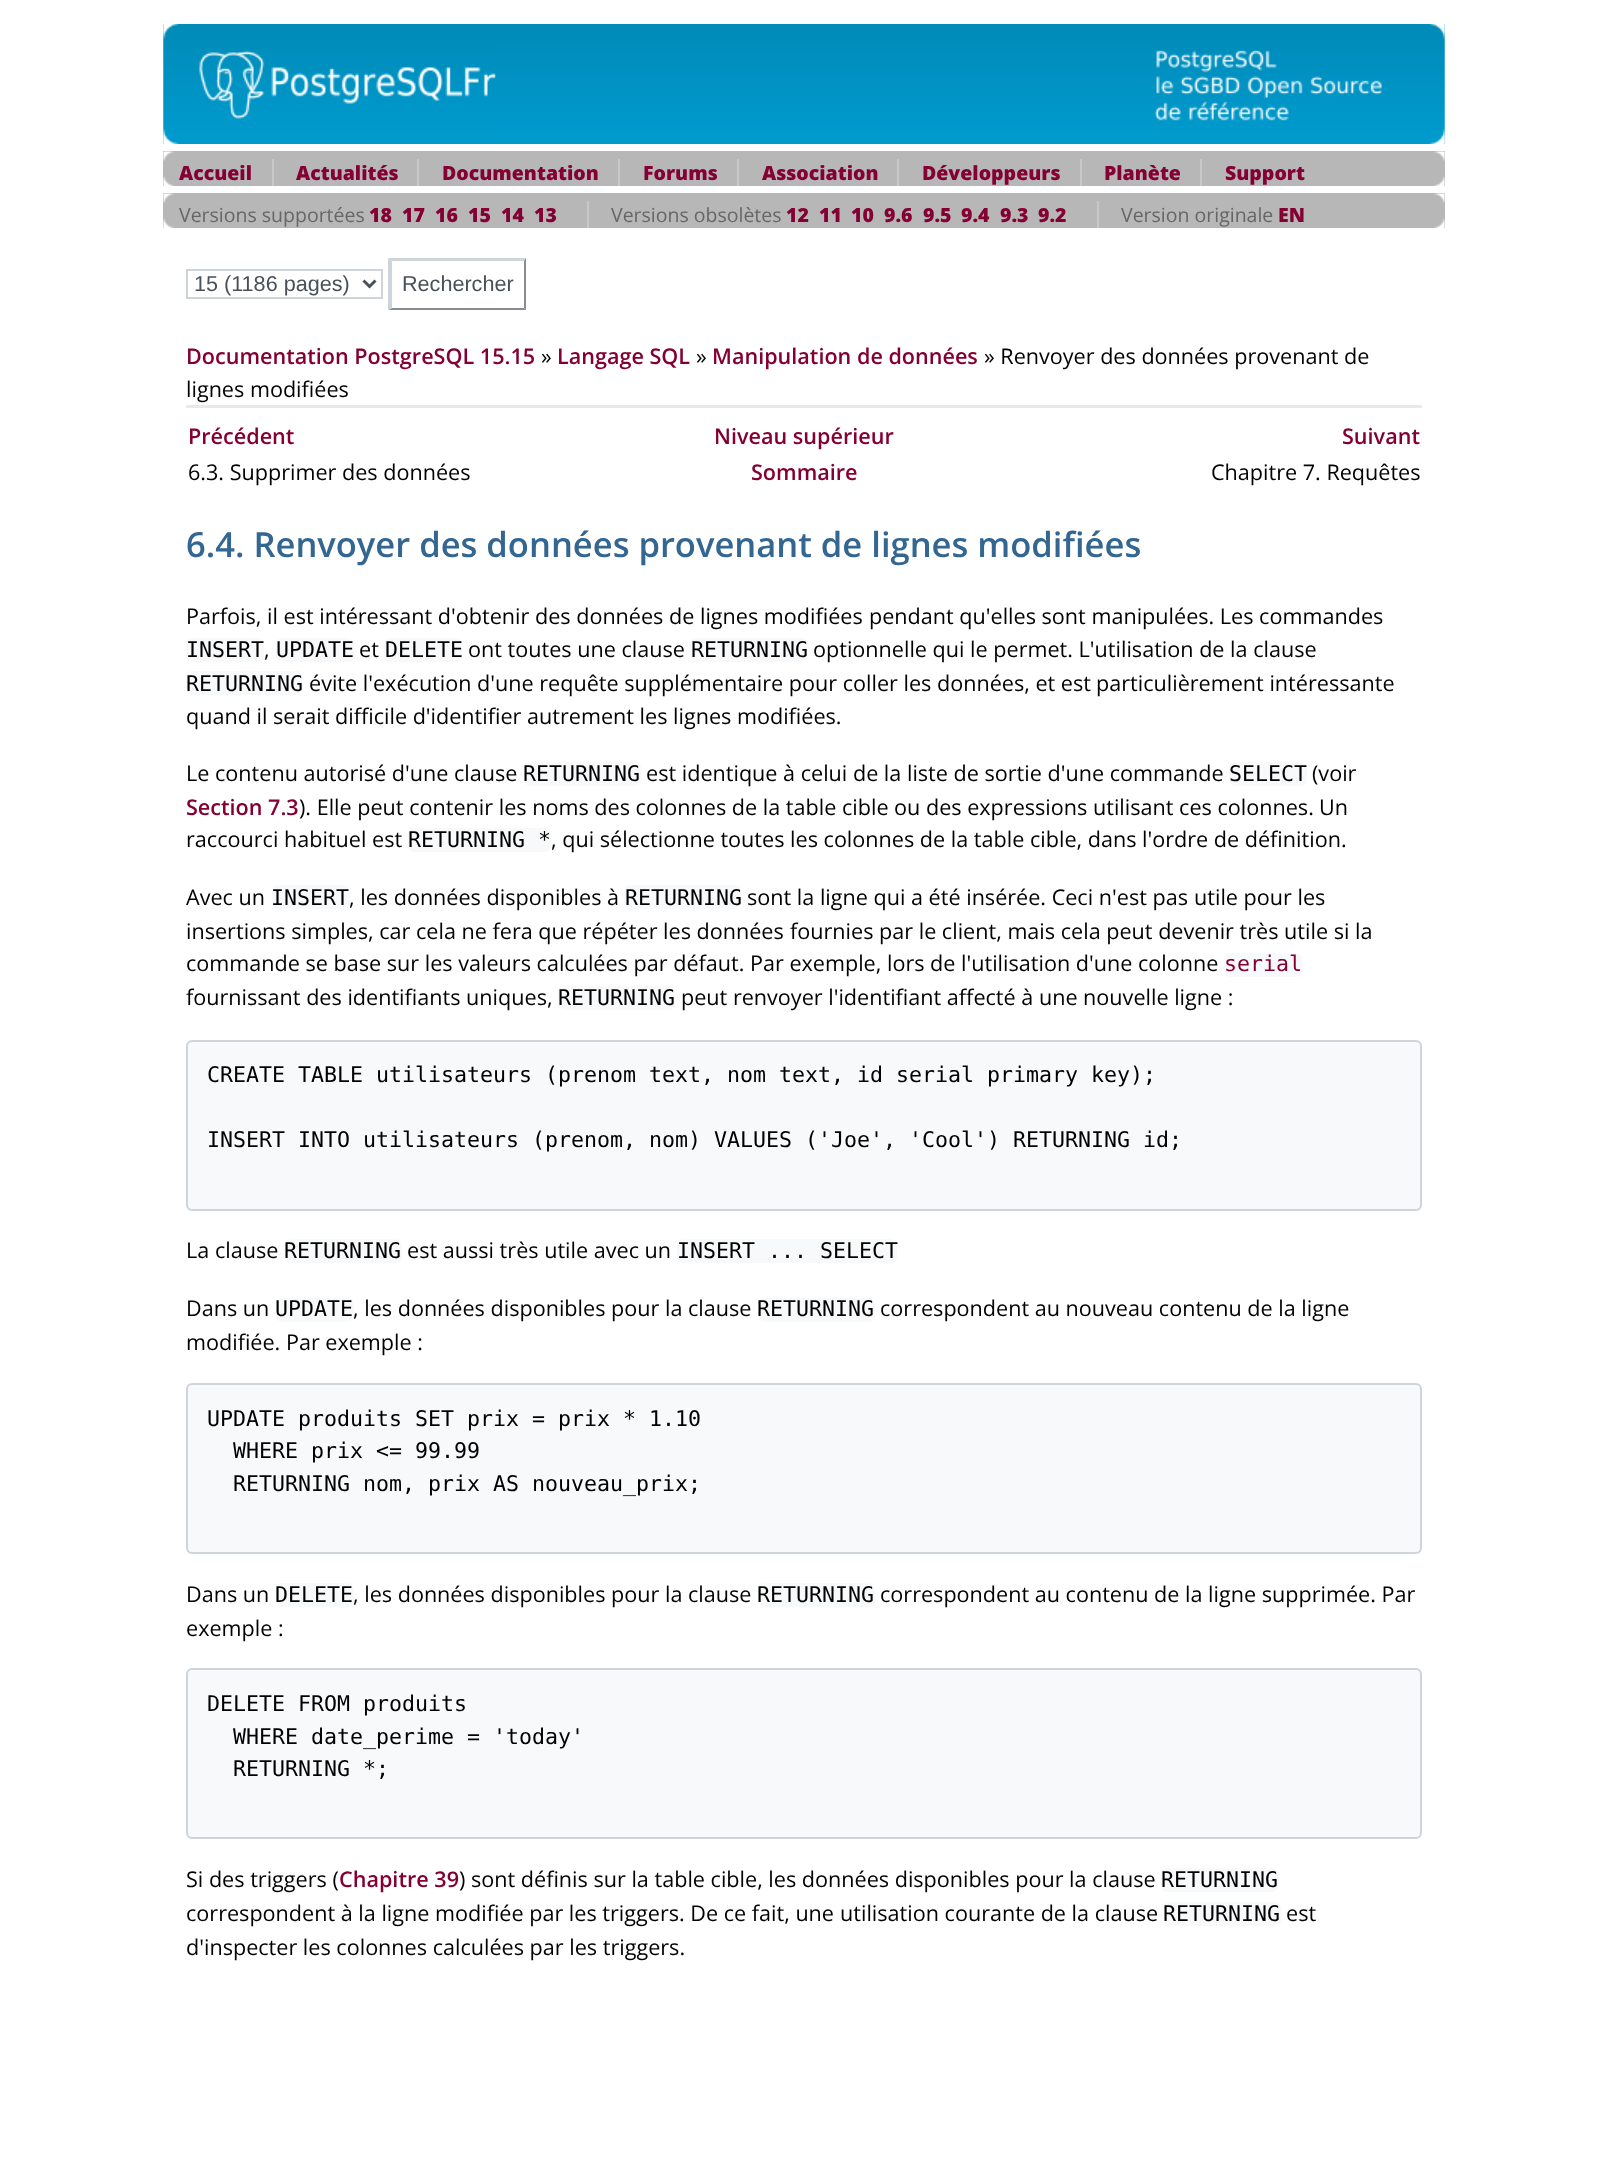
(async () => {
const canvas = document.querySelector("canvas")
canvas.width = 1608
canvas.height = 2171
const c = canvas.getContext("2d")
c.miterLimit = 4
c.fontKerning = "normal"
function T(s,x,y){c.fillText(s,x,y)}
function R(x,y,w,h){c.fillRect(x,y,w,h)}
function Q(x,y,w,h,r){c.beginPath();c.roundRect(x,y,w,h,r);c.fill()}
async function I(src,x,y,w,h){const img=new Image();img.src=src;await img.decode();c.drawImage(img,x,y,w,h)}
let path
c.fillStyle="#fff"
R(0,0,1608,2171)
await I("1.png",163,24,1282,120)
await I("2.png",163,24,333,120)
await I("3.png",1154,24,291,120)
c.fillStyle="#b7b7b7"
R(163,151,1282,35)
await I("4.png",163,151,11,35)
c.font="800 19.5px Open Sans"
c.fillStyle="#840032"
T("Accueil",179,180)
T("Actualités",296,180)
c.fillStyle="#c8c8c8"
R(272,159,2,27)
c.fillStyle="#840032"
T("Documentation",442,180)
c.fillStyle="#c8c8c8"
R(417,159,2,27)
c.fillStyle="#840032"
T("Forums",643,180)
c.fillStyle="#c8c8c8"
R(618,159,2,27)
c.fillStyle="#840032"
T("Association",762,180)
c.fillStyle="#c8c8c8"
R(737,159,2,27)
c.fillStyle="#840032"
T("Développeurs",922,180)
c.fillStyle="#c8c8c8"
R(897,159,2,27)
c.fillStyle="#840032"
T("Planète",1104,180)
c.fillStyle="#c8c8c8"
R(1080,159,2,27)
c.fillStyle="#840032"
T("Support",1225,180)
c.fillStyle="#c8c8c8"
R(1200,159,2,27)
await I("5.png",1434,151,11,35)
c.fillStyle="#b7b7b7"
R(163,193,1282,35)
await I("4.png",163,193,11,35)
c.font="19.5px Open Sans"
c.fillStyle="#666"
T("Versions supportées",179,222)
c.font="800 19.5px Open Sans"
c.fillStyle="#840032"
T("18",369,222)
T("17",402,222)
T("16",435,222)
T("15",468,222)
T("14",501,222)
T("13",534,222)
c.font="19.5px Open Sans"
c.fillStyle="#666"
T("Versions obsolètes",611,222)
c.fillStyle="#c8c8c8"
R(587,201,2,27)
c.font="800 19.5px Open Sans"
c.fillStyle="#840032"
T("12",786,222)
T("11",819,222)
T("10",851,222)
T("9.6",884,222)
T("9.5",923,222)
T("9.4",961,222)
T("9.3",1000,222)
T("9.2",1038,222)
c.font="19.5px Open Sans"
c.fillStyle="#666"
T("Version originale",1121,222)
c.fillStyle="#c8c8c8"
R(1097,201,2,27)
c.font="800 19.5px Open Sans"
c.fillStyle="#840032"
T("EN",1278,222)
await I("5.png",1434,193,11,35)
c.strokeStyle="#ced4da"
c.lineWidth=2
c.strokeRect(187,270,195,28)
path = new Path2D("M363.5 280.5l6 6l6-6")
c.strokeStyle="#495057"
c.lineWidth=3
c.stroke(path)
c.font="21.6px Liberation Sans"
c.fillStyle="#495057"
T("15 (1186 pages)",194,291)
c.fillStyle="#ced4da"
path = new Path2D("M388 258h138l-2 3h-132z")
c.fill(path)
c.fillStyle="#898d91"
path = new Path2D("M526 258v52l-2-2v-47z")
c.fill(path)
path = new Path2D("M526 310h-138l4-2h132z")
c.fill(path)
c.fillStyle="#ced4da"
path = new Path2D("M388 310v-52l4 3v47z")
c.fill(path)
c.fillStyle="#495057"
T("Rechercher",402,291)
c.font="600 21.6px Open Sans"
c.fillStyle="#840032"
T("Documentation PostgreSQL 15.15",186,364)
c.font="21.6px Open Sans"
c.fillStyle="#000"
T("»",541,364)
c.font="600 21.6px Open Sans"
c.fillStyle="#840032"
T("Langage SQL",557,364)
c.font="21.6px Open Sans"
c.fillStyle="#000"
T("»",696,364)
c.font="600 21.6px Open Sans"
c.fillStyle="#840032"
T("Manipulation de données",712,364)
c.font="21.6px Open Sans"
c.fillStyle="#000"
T("» Renvoyer des données provenant de",984,364)
T("lignes modifiées",186,397)
c.fillStyle="#e7eae8"
R(186,405,1236,3)
c.font="600 21.6px Open Sans"
c.fillStyle="#840032"
T("Précédent",188,444)
T("Niveau supérieur",714,444)
T("Suivant",1342,444)
c.font="21.6px Open Sans"
c.fillStyle="#000"
T("6.3. Supprimer des données",188,480)
c.font="600 21.6px Open Sans"
c.fillStyle="#840032"
T("Sommaire",751,480)
c.font="21.6px Open Sans"
c.fillStyle="#000"
T("Chapitre 7. Requêtes",1211,480)
c.font="600 34.55px Open Sans"
c.fillStyle="#336791"
T("6.4. Renvoyer des données provenant de lignes modifiées",186,557)
c.font="21.6px Open Sans"
c.fillStyle="#000"
T("Parfois, il est intéressant d'obtenir des données de lignes modifiées",186,624)
T("pendant qu'elles sont manipulées. Les commandes",869,624)
c.fillStyle="#f8f9fa"
Q(186,638,78,24,6)
c.font="21.6px DejaVu Sans Mono"
c.fillStyle="#000"
T("INSERT",186,657)
c.font="21.6px Open Sans"
T(",",264,657)
c.fillStyle="#f8f9fa"
Q(276,638,78,24,6)
c.font="21.6px DejaVu Sans Mono"
c.fillStyle="#000"
T("UPDATE",276,657)
c.font="21.6px Open Sans"
T("et",359,657)
c.fillStyle="#f8f9fa"
Q(384,638,78,24,6)
c.font="21.6px DejaVu Sans Mono"
c.fillStyle="#000"
T("DELETE",385,657)
c.font="21.6px Open Sans"
T("ont toutes une clause",468,657)
c.fillStyle="#f8f9fa"
Q(690,638,117,24,6)
c.font="21.6px DejaVu Sans Mono"
c.fillStyle="#000"
T("RETURNING",691,657)
c.font="21.6px Open Sans"
T("optionnelle qui le permet. L'utilisation de la clause",813,657)
c.fillStyle="#f8f9fa"
Q(186,671,117,24,6)
c.font="21.6px DejaVu Sans Mono"
c.fillStyle="#000"
T("RETURNING",186,691)
c.font="21.6px Open Sans"
T("évite l'exécution d'une requête supplémentaire pour coller les données, et est",309,691)
T("particulièrement intéressante",1096,691)
T("quand il serait difficile d'identifier autrement les lignes modifiées.",186,724)
T("Le contenu autorisé d'une clause",186,781)
c.fillStyle="#f8f9fa"
Q(524,762,117,24,6)
c.font="21.6px DejaVu Sans Mono"
c.fillStyle="#000"
T("RETURNING",523,781)
c.font="21.6px Open Sans"
T("est identique à celui de la liste de sortie d'une commande",646,781)
c.fillStyle="#f8f9fa"
Q(1229,762,78,24,6)
c.font="21.6px DejaVu Sans Mono"
c.fillStyle="#000"
T("SELECT",1229,781)
c.font="21.6px Open Sans"
T("(voir",1312,781)
c.font="600 21.6px Open Sans"
c.fillStyle="#840032"
T("Section 7.3",186,815)
c.font="21.6px Open Sans"
c.fillStyle="#000"
T("). Elle peut contenir les noms des colonnes de la table cible ou des expressions utilisant ces colonnes.",299,815)
T("Un",1319,815)
T("raccourci habituel est",186,847)
c.fillStyle="#f8f9fa"
Q(408,828,143,24,6)
c.font="21.6px DejaVu Sans Mono"
c.fillStyle="#000"
T("RETURNING *",408,847)
c.font="21.6px Open Sans"
T(", qui sélectionne toutes les colonnes de la table cible, dans l'ordre de définition.",551,847)
T("Avec un",186,905)
c.fillStyle="#f8f9fa"
Q(272,885,78,24,6)
c.font="21.6px DejaVu Sans Mono"
c.fillStyle="#000"
T("INSERT",271,905)
c.font="21.6px Open Sans"
T(", les données disponibles à",349,905)
c.fillStyle="#f8f9fa"
Q(624,885,117,24,6)
c.font="21.6px DejaVu Sans Mono"
c.fillStyle="#000"
T("RETURNING",625,905)
c.font="21.6px Open Sans"
T("sont la ligne qui a été insérée. Ceci n'est pas",747,905)
T("utile pour les",1194,905)
T("insertions simples, car cela ne fera que répéter les données",186,939)
T("fournies par le client, mais cela peut devenir très utile si la",790,939)
T("commande se base sur les valeurs calculées par défaut. Par exemple, lors de",186,971)
T("l'utilisation d'une colonne",961,971)
c.fillStyle="#f8f9fa"
Q(1224,953,78,24,6)
c.font="21.6px DejaVu Sans Mono"
c.fillStyle="#840032"
T("serial",1224,971)
c.font="21.6px Open Sans"
c.fillStyle="#000"
T("fournissant des identifiants uniques,",186,1005)
c.fillStyle="#f8f9fa"
Q(558,986,117,24,6)
c.font="21.6px DejaVu Sans Mono"
c.fillStyle="#000"
T("RETURNING",558,1005)
c.font="21.6px Open Sans"
T("peut renvoyer l'identifiant affecté à une nouvelle ligne :",681,1005)
c.fillStyle="#f8f9fa"
c.beginPath()
c.roundRect(187,1041,1234,169,5)
c.fill()
c.strokeStyle="#ced4da"
c.lineWidth=2
c.stroke()
c.font="21.6px DejaVu Sans Mono"
c.fillStyle="#000"
T("CREATE TABLE utilisateurs (prenom text, nom text, id serial primary key);",207,1082)
T("INSERT INTO utilisateurs (prenom, nom) VALUES ('Joe', 'Cool') RETURNING id;",207,1147)
c.font="21.6px Open Sans"
T("La clause",186,1258)
c.fillStyle="#f8f9fa"
Q(285,1239,117,24,6)
c.font="21.6px DejaVu Sans Mono"
c.fillStyle="#000"
T("RETURNING",284,1258)
c.font="21.6px Open Sans"
T("est aussi très utile avec un",407,1258)
c.fillStyle="#f8f9fa"
Q(677,1239,220,24,6)
c.font="21.6px DejaVu Sans Mono"
c.fillStyle="#000"
T("INSERT ... SELECT",677,1258)
c.font="21.6px Open Sans"
T("Dans un",186,1316)
c.fillStyle="#f8f9fa"
Q(276,1298,78,24,6)
c.font="21.6px DejaVu Sans Mono"
c.fillStyle="#000"
T("UPDATE",275,1316)
c.font="21.6px Open Sans"
T(", les données disponibles pour la clause",353,1316)
c.fillStyle="#f8f9fa"
Q(758,1298,117,24,6)
c.font="21.6px DejaVu Sans Mono"
c.fillStyle="#000"
T("RETURNING",757,1316)
c.font="21.6px Open Sans"
T("correspondent au nouveau contenu de la ligne",880,1316)
T("modifiée. Par exemple :",186,1350)
c.fillStyle="#f8f9fa"
c.beginPath()
c.roundRect(187,1384,1234,169,5)
c.fill()
c.stroke()
c.font="21.6px DejaVu Sans Mono"
c.fillStyle="#000"
T("UPDATE produits SET prix = prix * 1.10",207,1426)
T("WHERE prix <= 99.99",233,1458)
T("RETURNING nom, prix AS nouveau_prix;",233,1491)
c.font="21.6px Open Sans"
T("Dans un",186,1602)
c.fillStyle="#f8f9fa"
Q(276,1583,78,24,6)
c.font="21.6px DejaVu Sans Mono"
c.fillStyle="#000"
T("DELETE",275,1602)
c.font="21.6px Open Sans"
T(", les données disponibles pour la clause",353,1602)
c.fillStyle="#f8f9fa"
Q(758,1583,117,24,6)
c.font="21.6px DejaVu Sans Mono"
c.fillStyle="#000"
T("RETURNING",757,1602)
c.font="21.6px Open Sans"
T("correspondent au contenu de la ligne supprimée. Par",880,1602)
T("exemple :",186,1636)
c.fillStyle="#f8f9fa"
c.beginPath()
c.roundRect(187,1669,1234,169,5)
c.fill()
c.stroke()
c.font="21.6px DejaVu Sans Mono"
c.fillStyle="#000"
T("DELETE FROM produits",207,1711)
T("WHERE date_perime = 'today'",233,1744)
T("RETURNING *;",233,1776)
c.font="21.6px Open Sans"
T("Si des triggers (",186,1887)
c.font="600 21.6px Open Sans"
c.fillStyle="#840032"
T("Chapitre 39",339,1887)
c.font="21.6px Open Sans"
c.fillStyle="#000"
T(") sont définis sur la table cible, les données disponibles pour la clause",459,1887)
c.fillStyle="#f8f9fa"
Q(1161,1868,117,24,6)
c.font="21.6px DejaVu Sans Mono"
c.fillStyle="#000"
T("RETURNING",1161,1887)
c.font="21.6px Open Sans"
T("correspondent à la ligne modifiée par les triggers. De ce fait, une",186,1921)
T("utilisation courante de la clause",840,1921)
c.fillStyle="#f8f9fa"
Q(1164,1902,117,24,6)
c.font="21.6px DejaVu Sans Mono"
c.fillStyle="#000"
T("RETURNING",1163,1921)
c.font="21.6px Open Sans"
T("est",1286,1921)
T("d'inspecter les colonnes calculées par les triggers.",186,1955)
})()
